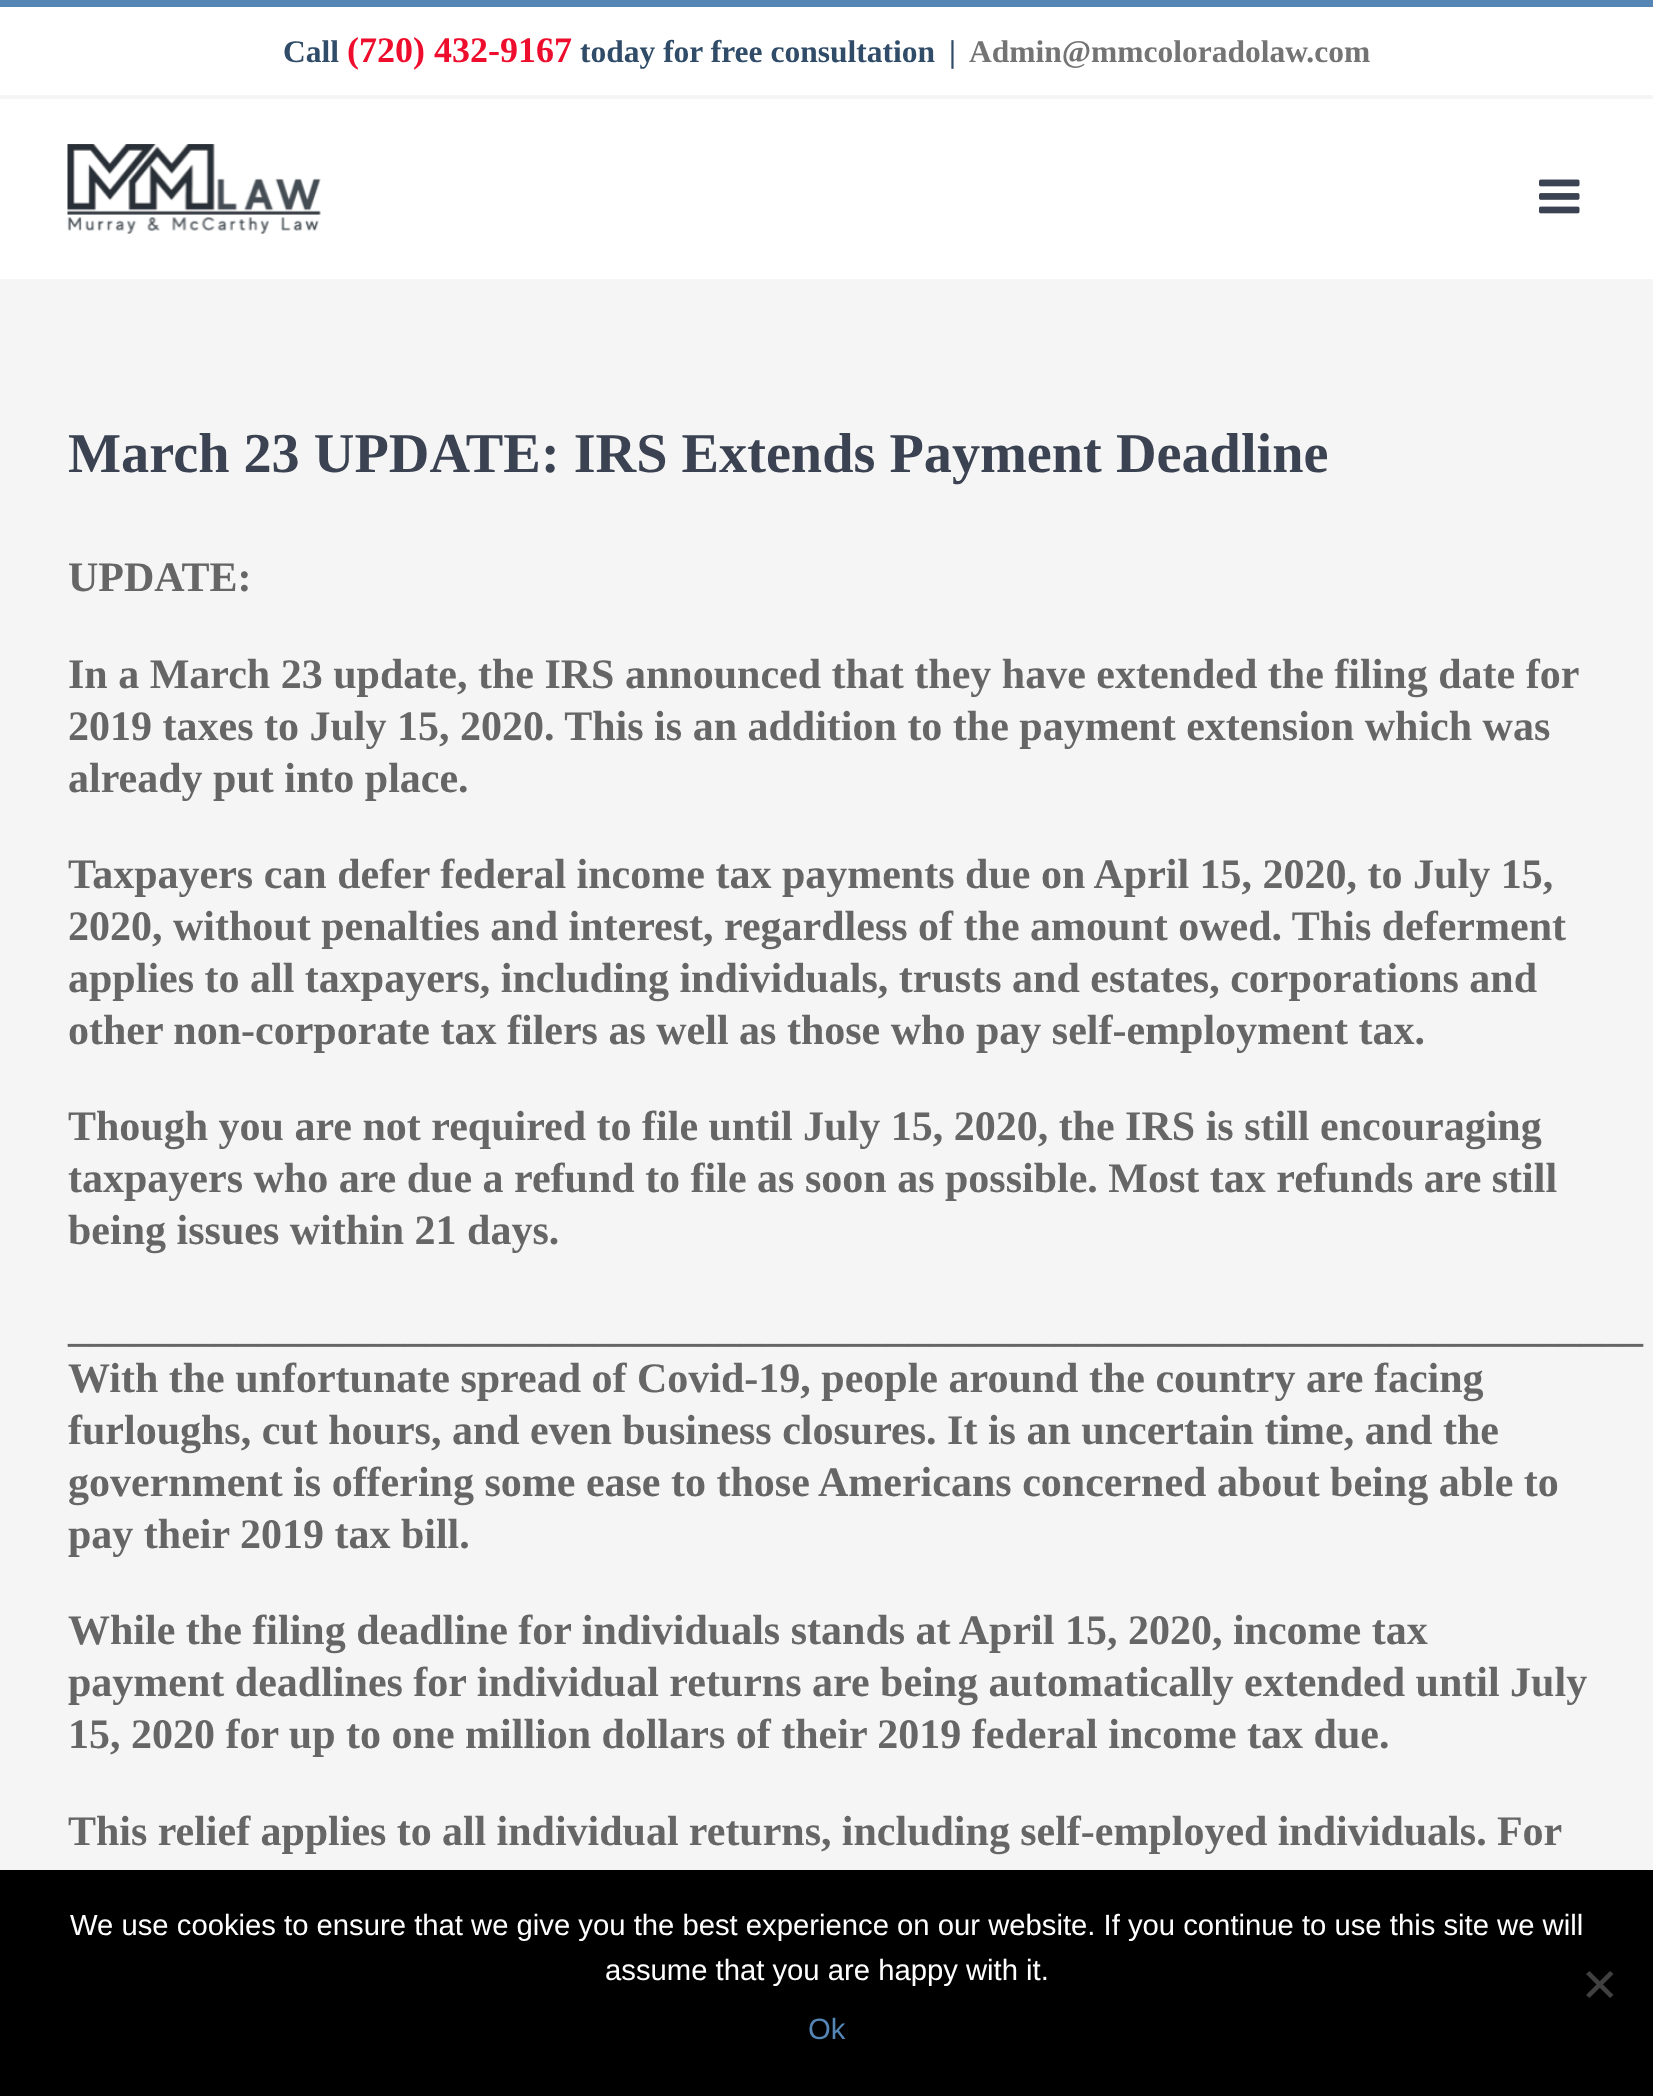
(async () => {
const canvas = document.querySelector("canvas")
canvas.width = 1653
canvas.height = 2096
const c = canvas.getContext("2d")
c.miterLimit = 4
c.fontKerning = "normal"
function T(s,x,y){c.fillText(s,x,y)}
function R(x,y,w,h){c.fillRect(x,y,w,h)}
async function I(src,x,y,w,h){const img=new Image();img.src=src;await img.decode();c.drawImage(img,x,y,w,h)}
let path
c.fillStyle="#f5f5f5"
R(0,0,1653,2096)
c.fillStyle="#fff"
R(0,7,1653,88)
c.fillStyle="#5485b5"
R(0,0,1653,7)
c.font="bold 31.5px Liberation Serif"
c.fillStyle="#304c68"
T("Call",283,62)
c.font="bold 36px Liberation Serif"
c.fillStyle="#ee0d2c"
T("(720) 432-9167",347,62)
c.font="bold 31.5px Liberation Serif"
c.fillStyle="#304c68"
T("today for free consultation",580,62)
T("|",949,62)
c.fillStyle="#747474"
T("Admin@mmcoloradolaw.com",969,62)
c.fillStyle="#fff"
R(0,99,1653,180)
await I("1.png",67,144,254,90)
await I("2.png",1539,179,41,35)
c.font="bold 56.25px Liberation Serif"
c.fillStyle="#3b4251"
T("March 23 UPDATE: IRS Extends Payment Deadline",68,472)
c.font="bold 42px Liberation Serif"
c.fillStyle="#666"
T("UPDATE:",68,591)
T("In a March 23 update, the IRS announced that they have extended the filing date for",68,688)
T("2019 taxes to July 15, 2020. This is an addition to the payment extension which was",68,740)
T("already put into place.",68,792)
T("Taxpayers can defer federal income tax payments due on April 15, 2020, to July 15,",68,888)
T("2020, without penalties and interest, regardless of the amount owed. This deferment",68,940)
T("applies to all taxpayers, including individuals, trusts and estates, corporations and",68,992)
T("other non-corporate tax filers as well as those who pay self-employment tax.",68,1044)
T("Though you are not required to file until July 15, 2020, the IRS is still encouraging",68,1140)
T("taxpayers who are due a refund to file as soon as possible. Most tax refunds are still",68,1192)
T("being issues within 21 days.",68,1244)
T("___________________________________________________________________________",68,1341)
T("With the unfortunate spread of Covid-19, people around the country are facing",68,1392)
T("furloughs, cut hours, and even business closures. It is an uncertain time, and the",68,1444)
T("government is offering some ease to those Americans concerned about being able to",68,1496)
T("pay their 2019 tax bill.",68,1548)
T("While the filing deadline for individuals stands at April 15, 2020, income tax",68,1644)
T("payment deadlines for individual returns are being automatically extended until July",68,1696)
T("15, 2020 for up to one million dollars of their 2019 federal income tax due.",68,1748)
c.wordSpacing="-0.25px"
T("This relief applies to all individual returns, including self-employed individuals. For",68,1845)
c.fillStyle="#000"
R(0,1870,1653,226)
c.wordSpacing="0px"
c.font="29.25px Liberation Sans"
c.fillStyle="#fff"
T("We use cookies to ensure that we give you the best experience on our website. If you continue to use this site we will",70,1935)
T("assume that you are happy with it.",605,1980)
c.fillStyle="#404040"
path = new Path2D("M1610 1971l3.5 3l-24 24l-3.5-3z")
c.fill(path)
path = new Path2D("M1586 1974l3.5-3l24 24l-3.5 3z")
c.fill(path)
c.fillStyle="#5485b5"
T("Ok",808,2039)
})()
